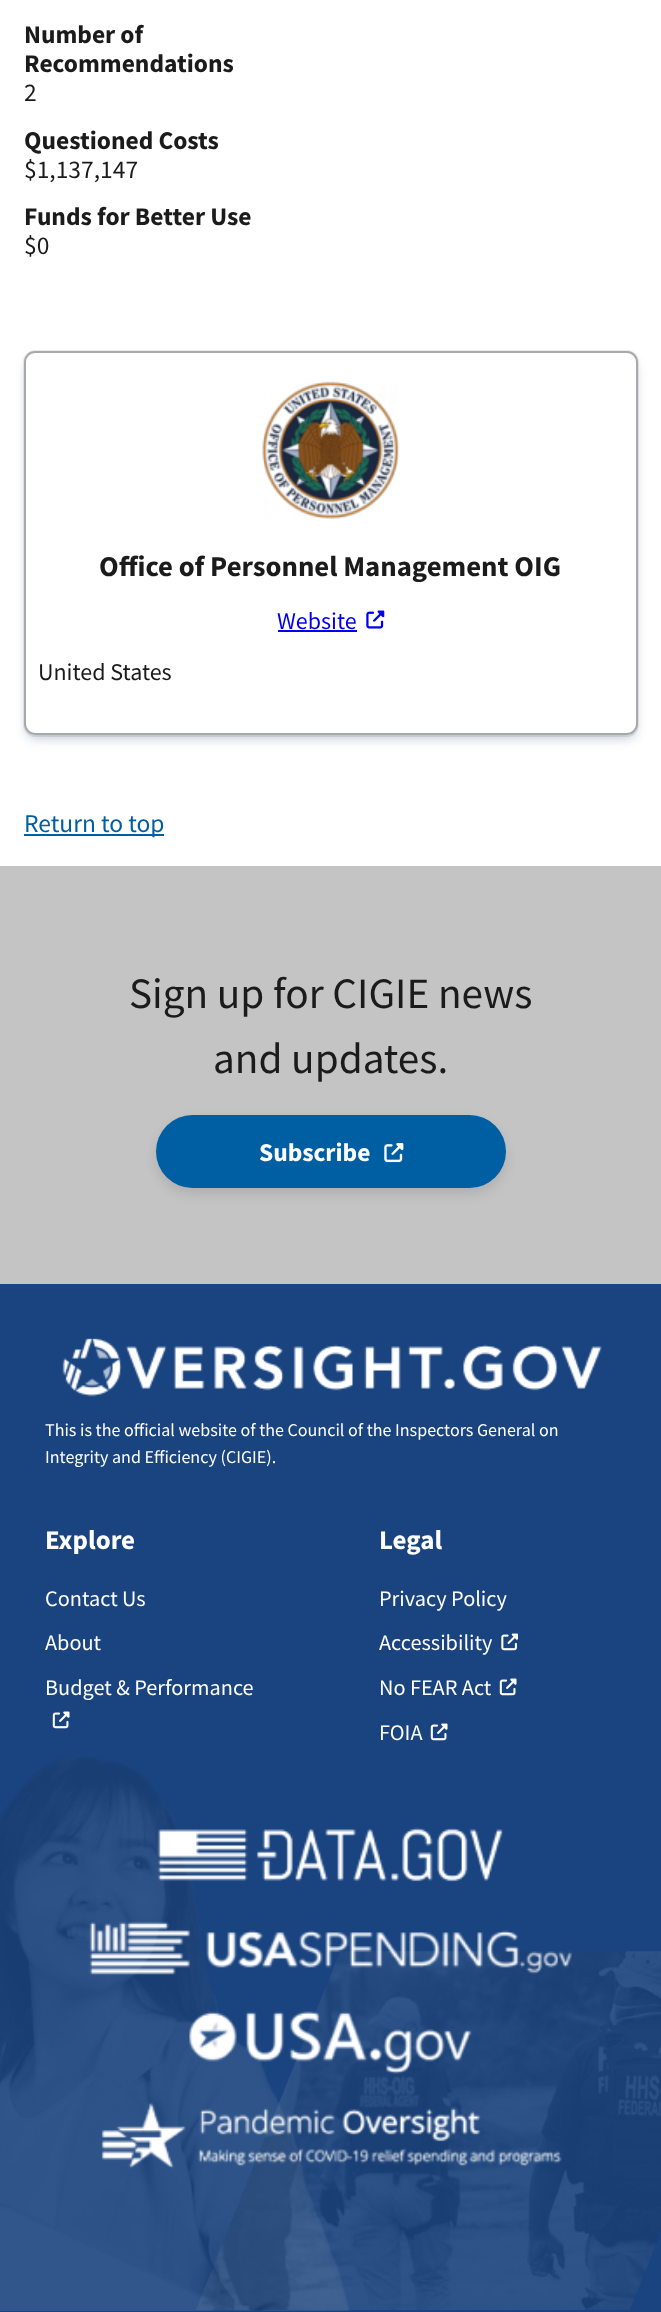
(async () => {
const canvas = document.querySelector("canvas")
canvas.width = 661
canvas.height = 2312
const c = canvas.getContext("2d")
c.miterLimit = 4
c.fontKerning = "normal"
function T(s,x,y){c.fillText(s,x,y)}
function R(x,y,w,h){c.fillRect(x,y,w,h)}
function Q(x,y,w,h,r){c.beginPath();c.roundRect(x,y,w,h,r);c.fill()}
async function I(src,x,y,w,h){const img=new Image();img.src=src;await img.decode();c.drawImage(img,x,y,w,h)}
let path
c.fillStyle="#fff"
R(0,0,661,2312)
c.font="bold 25.5px Source Sans Pro"
c.fillStyle="#1b1b1b"
T("Number of",24,43)
T("Recommendations",24,72)
c.font="25.5px Source Sans Pro"
T("2",24,101)
c.font="bold 25.5px Source Sans Pro"
T("Questioned Costs",24,149)
c.font="25.5px Source Sans Pro"
T("$1,137,147",24,178)
c.font="bold 25.5px Source Sans Pro"
T("Funds for Better Use",24,225)
c.font="25.5px Source Sans Pro"
T("$0",24,254)
c.beginPath()
c.roundRect(24,351,614,385,11)
c.strokeStyle="#ebedf0"
c.lineWidth=2
c.stroke()
c.save()
path = new Path2D("M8 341h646v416h-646zm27 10h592c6 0 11 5 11 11v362c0 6-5 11-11 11h-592c-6 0-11-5-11-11v-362c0-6 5-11 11-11z")
c.clip(path,"evenodd")
c.fillStyle="#091e4240"
c.filter="blur(6px)"
c.beginPath()
c.roundRect(27,360,608,378,8)
c.fill()
c.filter="none"
c.restore()
c.beginPath()
c.roundRect(25,352,612,382,10)
c.strokeStyle="#a9a9a9"
c.stroke()
await I("1.png",262,381,138,138)
c.font="bold 28.75px Source Sans Pro"
T("Office of Personnel Management OIG",99,576)
c.font="24px Source Sans Pro"
c.fillStyle="#00e"
T("Website",277,629)
R(278,630,79,2)
await I("2.png",366,610,19,19)
c.fillStyle="#1b1b1b"
T("United States",38,680)
c.fillStyle="#005ea2"
R(24,834,140,2)
c.font="25.5px Source Sans Pro"
T("Return to top",24,832)
c.fillStyle="#c4c4c4"
R(0,866,661,418)
c.font="43.25px Source Sans Pro"
c.fillStyle="#1b1b1b"
T("Sign up for CIGIE news",129,1008)
T("and updates.",213,1073)
c.fillStyle="#0000001a"
c.filter="blur(6px)"
c.beginPath()
c.roundRect(156,1121,350,73,36.5)
c.fill()
c.filter="none"
c.fillStyle="#005ea2"
Q(156,1115,350,73,36.5)
c.font="bold 25.5px Source Sans Pro"
c.fillStyle="#fff"
T("Subscribe",259,1161)
await I("3.png",384,1143,20,20)
c.fillStyle="#1a4480"
R(0,1284,661,1028)
await I("4.png",62,1338,540,59)
c.font="18px Source Sans Pro"
c.fillStyle="#fff"
T("This is the official website of the Council of the Inspectors General on",45,1436)
T("Integrity and Efficiency (CIGIE).",45,1463)
c.font="bold 27px Source Sans Pro"
T("Explore",45,1549)
c.font="22.25px Source Sans Pro"
T("Contact Us",45,1606)
T("About",45,1650)
T("Budget & Performance",45,1695)
await I("5.png",52,1711,18,18)
c.font="bold 27px Source Sans Pro"
T("Legal",379,1549)
c.font="22.25px Source Sans Pro"
T("Privacy Policy",379,1606)
T("Accessibility",379,1650)
await I("6.png",501,1633,17,18)
T("No FEAR Act",379,1695)
await I("5.png",499,1678,18,18)
T("FOIA",379,1740)
await I("5.png",430,1723,18,18)
await I("11.png",0,1757,350,554)
await I("7.png",157,1827,346,55)
await I("12.png",196,1951,465,359)
await I("8.png",89,1921,483,54)
await I("9.png",189,2011,283,63)
await I("10.png",101,2102,461,67)
})()
